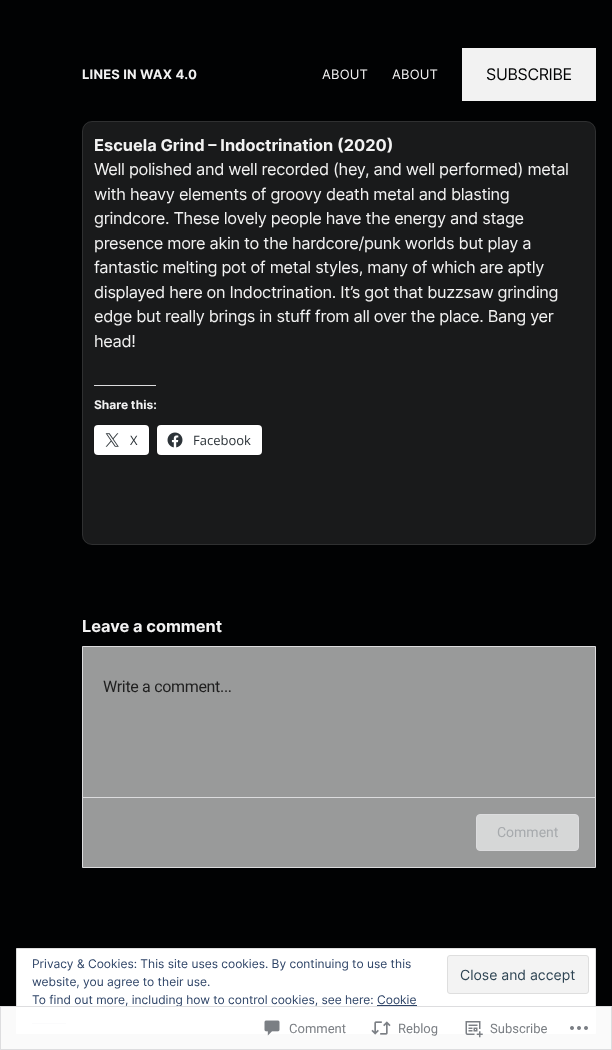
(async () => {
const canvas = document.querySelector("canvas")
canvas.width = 612
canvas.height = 1050
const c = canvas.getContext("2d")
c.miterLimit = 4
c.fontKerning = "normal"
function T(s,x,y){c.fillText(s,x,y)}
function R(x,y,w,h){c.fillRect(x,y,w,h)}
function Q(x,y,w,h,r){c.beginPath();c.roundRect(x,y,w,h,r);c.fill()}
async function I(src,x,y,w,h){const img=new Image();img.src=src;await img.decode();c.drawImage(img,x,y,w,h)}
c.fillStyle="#010203"
R(0,0,612,1050)
c.letterSpacing="0.2px"
c.font="bold 13px Inter"
c.fillStyle="#f2f2f2"
T("LINES IN WAX 4.0",82,79)
c.font="13px Inter"
T("ABOUT",322,79)
T("ABOUT",392,79)
R(462,48,134,53)
c.letterSpacing="-0.32px"
c.font="16px Inter"
c.fillStyle="#010203"
T("SUBSCRIBE",486,80)
c.fillStyle="#191a1b"
Q(82,121,514,424,10)
c.beginPath()
c.roundRect(82.5,121.5,513,423,9.5)
c.strokeStyle="#f2f2f21a"
c.stroke()
c.letterSpacing="0px"
c.font="bold 16.35px Inter"
c.fillStyle="#f2f2f2"
T("Escuela Grind – Indoctrination (2020)",94,151)
c.letterSpacing="-0.32px"
c.font="16.35px Inter"
T("Well polished and well recorded (hey, and well performed) metal",94,175)
T("with heavy elements of groovy death metal and blasting",94,200)
T("grindcore. These lovely people have the energy and stage",94,224)
T("presence more akin to the hardcore/punk worlds but play a",94,249)
T("fantastic melting pot of metal styles, many of which are aptly",94,273)
T("displayed here on Indoctrination. It’s got that buzzsaw grinding",94,298)
T("edge but really brings in stuff from all over the place. Bang yer",94,322)
T("head!",94,347)
c.fillStyle="#dcdcde"
R(94,385,62,1)
c.letterSpacing="0px"
c.font="bold 12px Inter"
c.fillStyle="#f2f2f2"
T("Share this:",94,409)
c.beginPath()
c.roundRect(93.5,424.5,56,31,4.5)
c.strokeStyle="#161718"
c.stroke()
c.fillStyle="#fff"
Q(94,425,55,30,4)
await I("1.png",105,433,14,14)
c.font="13px Open Sans"
c.fillStyle="#2c3338"
T("X",130,445)
c.beginPath()
c.roundRect(156.5,424.5,106,31,4.5)
c.stroke()
c.fillStyle="#fff"
Q(157,425,105,30,4)
await I("2.png",167,432,16,16)
c.fillStyle="#2c3338"
T("Facebook",193,445)
c.font="bold 16.35px Inter"
c.fillStyle="#f2f2f2"
T("Leave a comment",82,632)
c.fillStyle="#999a9a"
c.beginPath()
c.rect(82.5,646.5,513,221)
c.fill()
c.strokeStyle="#dcdcde"
c.stroke()
c.letterSpacing="-0.32px"
c.font="16px Roboto"
c.fillStyle="#1f1f1f"
T("Write a comment...",103,692)
c.fillStyle="#dcdcde"
R(83,797,512,1)
c.fillStyle="#d6d7d7"
c.beginPath()
c.roundRect(476.5,814.5,102,36,3.5)
c.fill()
c.stroke()
c.letterSpacing="0px"
c.font="14px Roboto"
c.fillStyle="#a7aaad"
T("Comment",497,837)
c.fillStyle="#fff"
c.beginPath()
c.rect(16.5,948.5,579,85)
c.fill()
c.strokeStyle="#dedede"
c.stroke()
c.font="12px Inter"
c.fillStyle="#2e4467"
T("Privacy & Cookies: This site uses cookies. By continuing to use this",32,968)
T("website, you agree to their use.",32,986)
c.fillStyle="#f3f3f3"
c.beginPath()
c.roundRect(447.5,955.5,141,38,2.5)
c.fill()
c.stroke()
c.font="14px Inter"
c.fillStyle="#2e4453"
T("Close and accept",460,980)
c.font="12px Inter"
c.fillStyle="#2e4467"
T("To find out more, including how to control cookies, see here: Cookie",32,1004)
R(377,1005,40,1)
R(32,1023,34,1)
c.fillStyle="#fffffffa"
R(0,1006,612,44)
c.strokeStyle="#dcdcdefa"
c.strokeRect(.5,1006.5,611,43)
await I("3.png",264,1020,16,16)
c.font="13px Roboto"
c.fillStyle="#7b7f84"
T("Comment",289,1033)
await I("4.png",371,1021,20,14)
T("Reblog",398,1033)
await I("5.png",465,1021,18,17)
T("Subscribe",490,1033)
await I("6.png",570,1026,18,4)
})()
